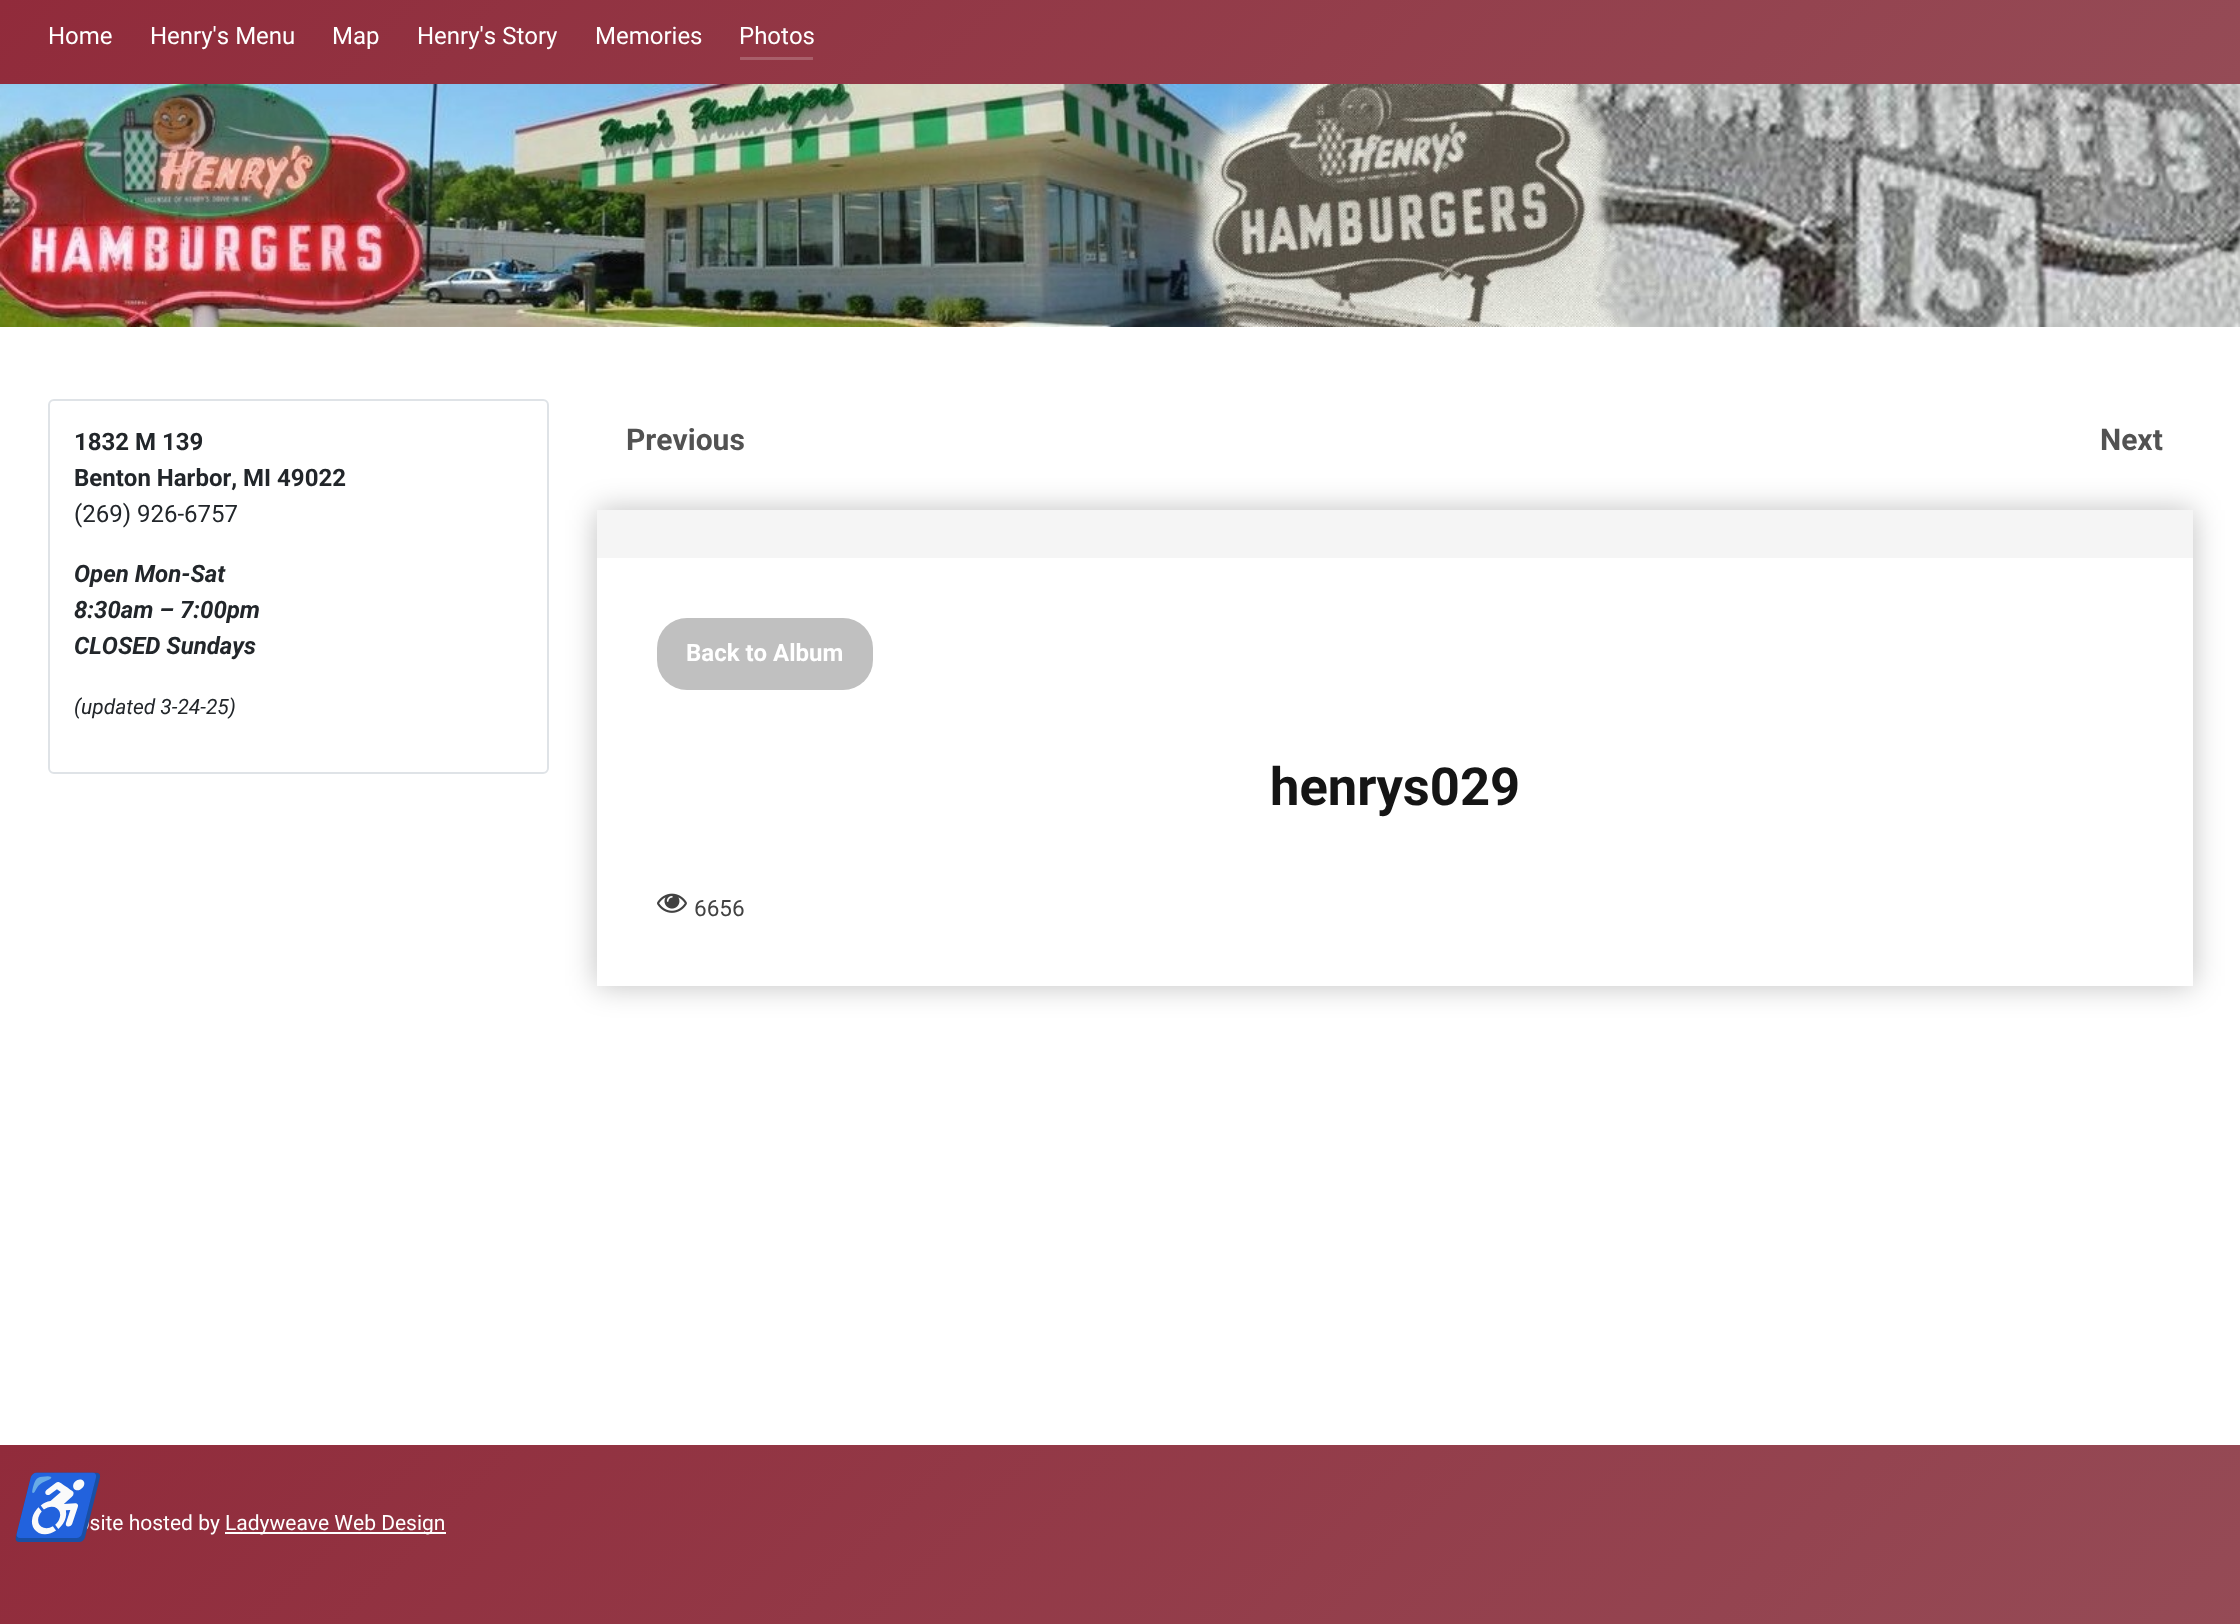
(async () => {
const canvas = document.querySelector("canvas")
canvas.width = 2240
canvas.height = 1624
const c = canvas.getContext("2d")
c.miterLimit = 4
c.fontKerning = "none"
function T(s,x,y){c.fillText(s,x,y)}
function R(x,y,w,h){c.fillRect(x,y,w,h)}
function Q(x,y,w,h,r){c.beginPath();c.roundRect(x,y,w,h,r);c.fill()}
async function I(src,x,y,w,h){const img=new Image();img.src=src;await img.decode();c.drawImage(img,x,y,w,h)}
let gradient
c.fillStyle="#fff"
R(0,0,2240,1624)
gradient = c.createLinearGradient(539,-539,1702,623)
gradient.addColorStop(0,"#912b3b")
gradient.addColorStop(1,"#954b56")
c.fillStyle = gradient
R(0,0,2240,84)
c.font="24px Roboto"
c.fillStyle="#fff"
T("Home",48,44)
T("Henry's Menu",150,44)
T("Map",332,44)
T("Henry's Story",417,44)
T("Memories",595,44)
T("Photos",739,44)
c.fillStyle="#a85f6a"
R(740,57,73,3)
await I("1.png",0,84,2240,243)
c.beginPath()
c.roundRect(49,400,499,373,5)
c.strokeStyle="#dfe3e7"
c.lineWidth=2
c.stroke()
c.font="bold 24px Roboto"
c.fillStyle="#22262a"
T("1832 M 139",74,450)
T("Benton Harbor, MI 49022",74,486)
c.font="24px Roboto"
T("(269) 926-6757",74,522)
c.font="italic bold 24px Roboto"
T("Open Mon-Sat",74,582)
T("8:30am – 7:00pm",74,618)
T("CLOSED Sundays",74,654)
c.font="italic 21px Roboto"
T("(updated 3-24-25)",74,714)
c.font="bold 30px Roboto"
c.fillStyle="#525252"
T("Previous",626,450)
T("Next",2100,450)
c.fillStyle="#00000040"
c.filter="blur(15px)"
c.beginPath()
c.rect(597,510,1596,476)
c.fill()
c.filter="none"
c.fillStyle="#fff"
R(597,558,1596,428)
c.fillStyle="#f5f5f5"
R(597,510,1596,48)
c.fillStyle="#c0c0c0"
Q(657,618,216,72,30)
c.font="bold 24px Roboto"
c.fillStyle="#fff"
T("Back to Album",686,661)
c.font="bold 52.5px Roboto"
c.fillStyle="#151515"
T("henrys029",1270,805)
await I("2.png",657,893,30,20)
c.font="22.5px Roboto"
c.fillStyle="#424242"
T("6656",694,916)
gradient = c.createLinearGradient(515,929,1726,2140)
gradient.addColorStop(0,"#912b3b")
gradient.addColorStop(1,"#954b56")
c.fillStyle = gradient
R(0,1445,2240,179)
c.font="21px Roboto"
c.fillStyle="#fff"
T("Website hosted by",48,1530)
c.letterSpacing="-4px"
c.font="italic 63px Noto Color Emoji"
T("♿",13,1529)
R(225,1532,221,2)
c.letterSpacing="0px"
c.font="21px Roboto"
T("Ladyweave Web Design",225,1530)
})()
